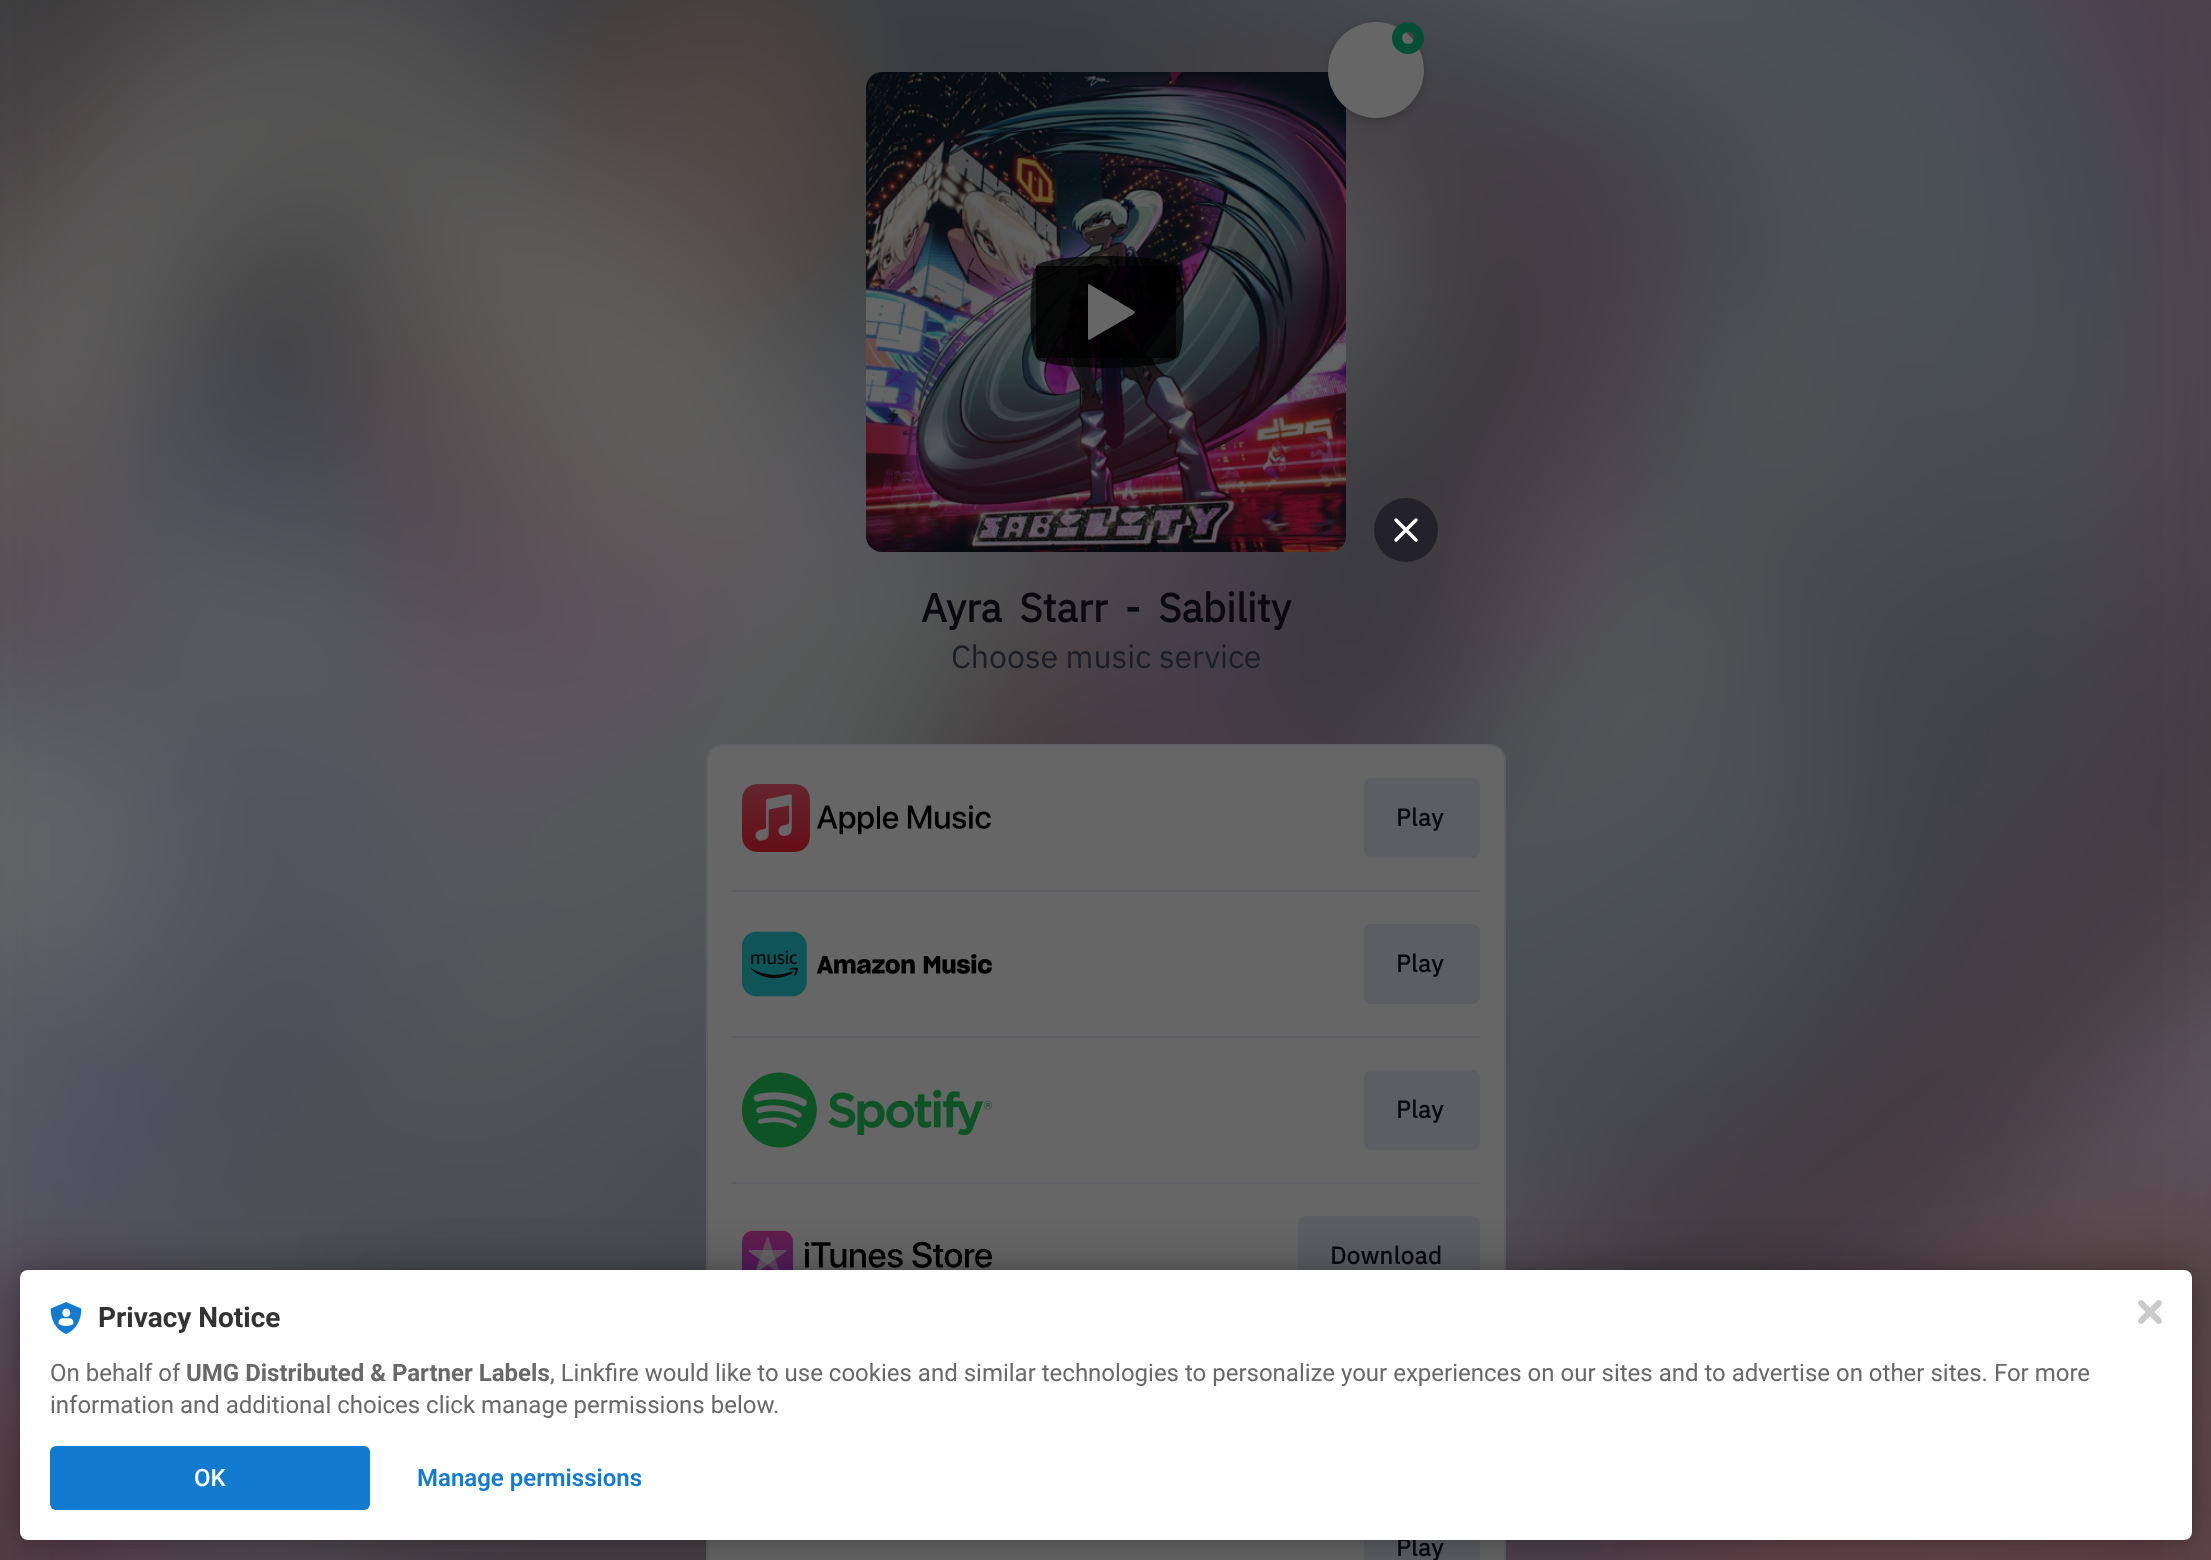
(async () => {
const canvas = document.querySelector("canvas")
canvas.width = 2211
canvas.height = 1560
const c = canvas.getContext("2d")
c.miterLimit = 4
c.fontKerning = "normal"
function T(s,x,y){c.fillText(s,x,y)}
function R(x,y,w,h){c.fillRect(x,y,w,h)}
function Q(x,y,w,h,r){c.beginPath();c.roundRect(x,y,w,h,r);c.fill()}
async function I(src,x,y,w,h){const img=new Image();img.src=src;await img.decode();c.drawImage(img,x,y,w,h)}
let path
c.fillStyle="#666"
R(0,0,2211,1560)
await I("1.png",0,0,2211,1560)
await I("2.png",866,72,480,480)
c.fillStyle="#00000033"
c.filter="blur(4px)"
c.beginPath()
c.roundRect(1328,26,96,96,48)
c.fill()
c.filter="none"
c.fillStyle="#666"
c.beginPath()
c.arc(1376,70,48,0,7)
c.fill()
c.beginPath()
c.arc(1408,38,11,0,7)
c.strokeStyle="#054f36"
c.lineWidth=10
c.stroke()
c.fillStyle="#181721b3"
c.beginPath()
c.arc(1406,530,32,0,7)
c.fill()
path = new Path2D("M1396 520l20 20m-20 0l20-20")
c.strokeStyle="#fff"
c.lineWidth=3.4
c.lineCap="round"
c.lineJoin="round"
c.stroke(path)
c.fillStyle="#000000b3"
path = new Path2D("M1106 256c39 0 70 5 70 11v90c0 6-31 11-70 11c-39 0-70-5-70-11v-90c0-6 31-11 70-11z")
c.fill(path)
path = new Path2D("M1038 266h138c8 0 8 49 8 55l-2 24c-1 2-2 13-6 13h-138c-10 0-10-92 0-92z")
c.fill(path)
c.fillStyle="#666"
path = new Path2D("M1134 311l-45-27c-1 0-1 1-1 1v54l1 1l38-22c2-2 7-3 8-6z")
c.fill(path)
c.wordSpacing="8px"
c.font="bold 40px IBM Plex Sans"
c.fillStyle="#0a090d"
T("Ayra Starr - Sability",921,622)
c.wordSpacing="0px"
c.font="32px IBM Plex Sans"
c.fillStyle="#1c1e26"
T("Choose music service",951,668)
c.beginPath()
c.roundRect(707,745,798,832,15)
c.strokeStyle="#5c5e61"
c.lineWidth=2
c.lineJoin="miter"
c.stroke()
c.fillStyle="#666"
Q(708,746,796,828,14)
await I("3.png",742,784,249,68)
c.fillStyle="#5c5e61"
Q(1364,778,116,80,8)
c.letterSpacing="0.5px"
c.font="bold 24px IBM Plex Sans"
c.fillStyle="#0a090d"
T("Play",1396,826)
c.fillStyle="#5c5e61"
R(732,890,748,2)
await I("4.png",742,931,250,66)
Q(1364,924,116,80,8)
c.fillStyle="#0a090d"
T("Play",1396,972)
c.fillStyle="#5c5e61"
R(732,1036,748,2)
await I("5.png",742,1072,250,76)
Q(1364,1070,116,80,8)
c.fillStyle="#0a090d"
T("Play",1396,1118)
c.fillStyle="#5c5e61"
R(732,1182,748,2)
await I("6.png",742,1230,250,40)
Q(1298,1216,182,80,8)
c.fillStyle="#0a090d"
T("Download",1330,1264)
c.fillStyle="#5c5e61"
R(1364,1540,116,20)
c.fillStyle="#0a090d"
T("Play",1396,1556)
c.fillStyle="#0000001f"
c.filter="blur(4px)"
c.beginPath()
c.roundRect(20,1270,2172,270,8)
c.fill()
c.filter="none"
c.fillStyle="#0000004d"
c.filter="blur(24px)"
c.beginPath()
c.roundRect(20,1270,2172,270,8)
c.fill()
c.filter="none"
c.fillStyle="#fff"
Q(20,1270,2172,270,8)
await I("7.png",50,1302,32,32)
c.letterSpacing="0px"
c.font="bold 28px Roboto"
c.fillStyle="#323232"
T("Privacy Notice",98,1327)
c.font="24px Roboto"
c.fillStyle="#686868"
T("On behalf of",50,1381)
c.font="bold 24px Roboto"
T("UMG Distributed & Partner Labels",186,1381)
c.font="24px Roboto"
T(", Linkfire would like to use cookies and similar technologies to personalize your experiences on our sites and to advertise on other sites. For more",550,1381)
T("information and additional choices click manage permissions below.",50,1413)
c.fillStyle="#137bcf"
Q(50,1446,320,64,6)
c.font="500 24px Roboto"
c.fillStyle="#fff"
T("OK",194,1486)
c.font="600 24px Roboto"
c.fillStyle="#137bcf"
T("Manage permissions",417,1486)
await I("8.png",2138,1300,24,24)
})()
